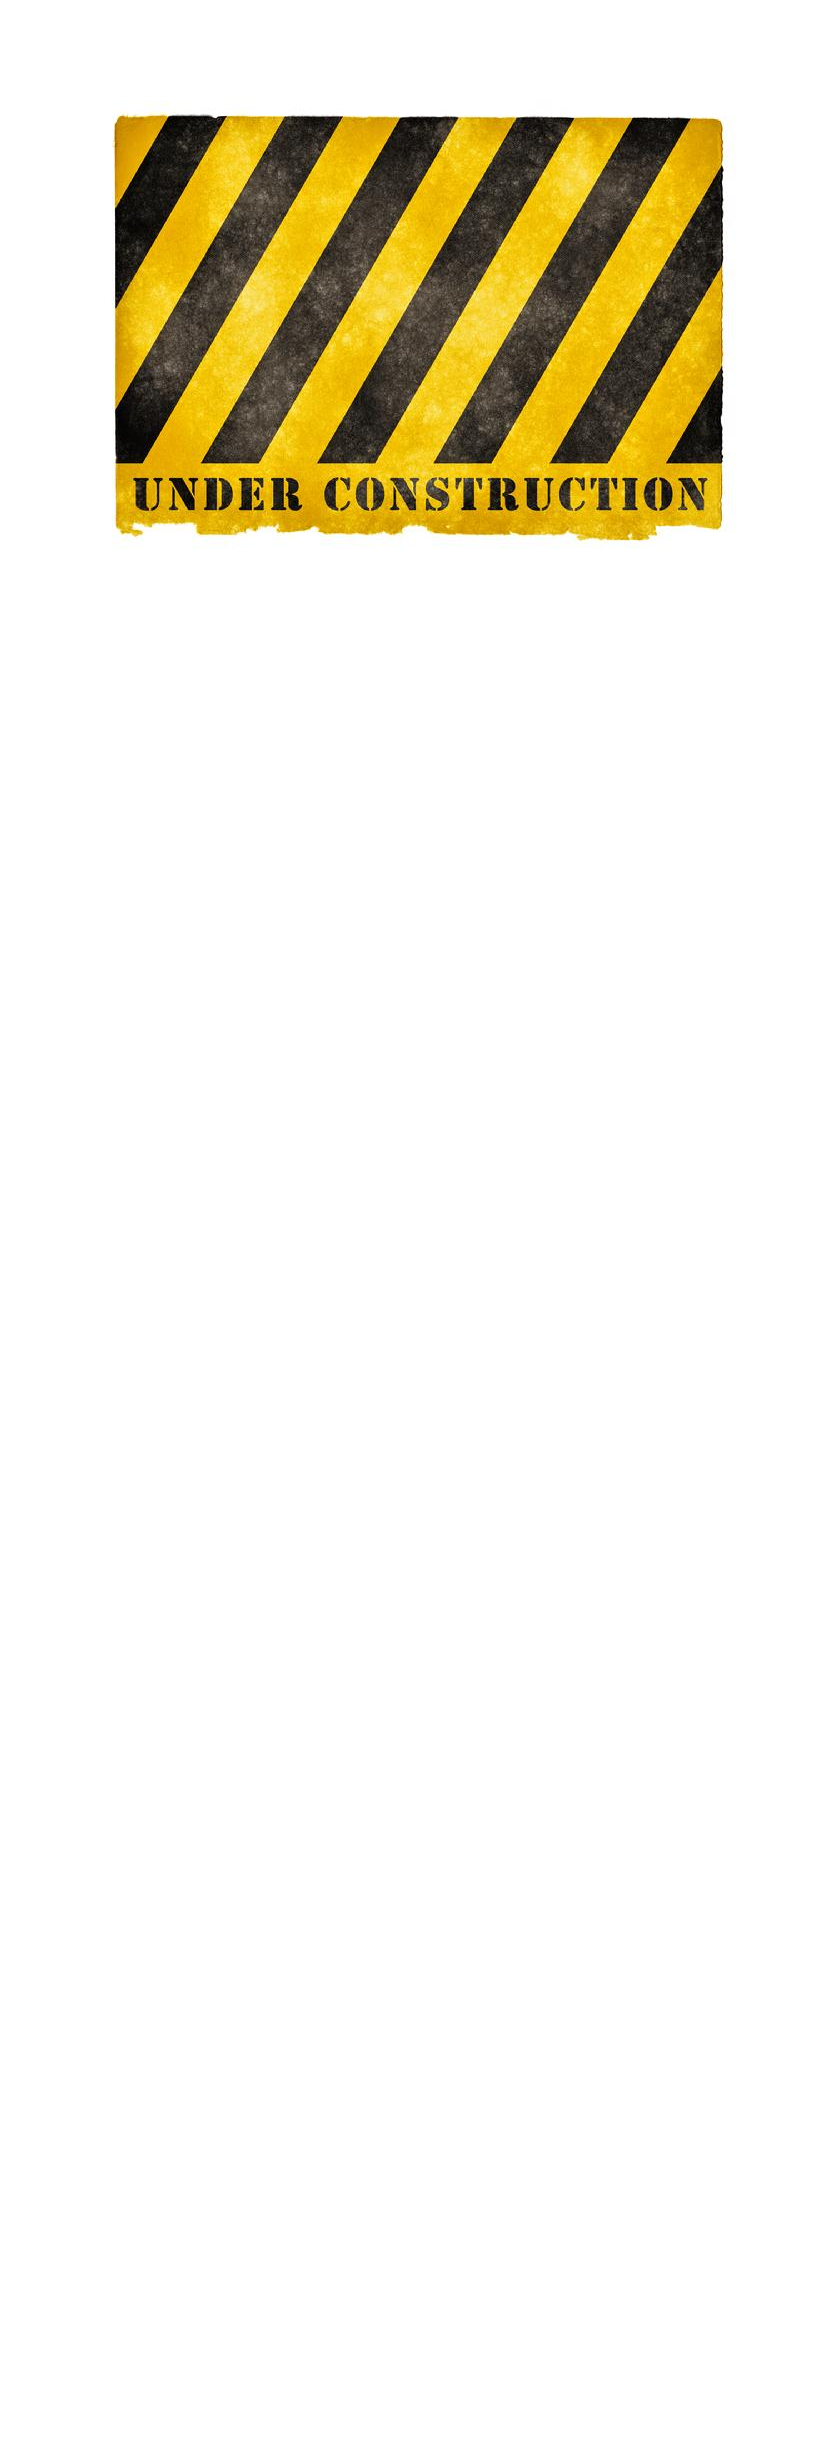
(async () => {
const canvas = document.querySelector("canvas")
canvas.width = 834
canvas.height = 2448
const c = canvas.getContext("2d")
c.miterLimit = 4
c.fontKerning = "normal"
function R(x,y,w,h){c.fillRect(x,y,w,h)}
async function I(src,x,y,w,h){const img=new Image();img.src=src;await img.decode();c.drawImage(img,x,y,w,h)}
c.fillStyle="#fff"
R(0,0,834,2448)
await I("1.png",111,100,626,449)
})()
